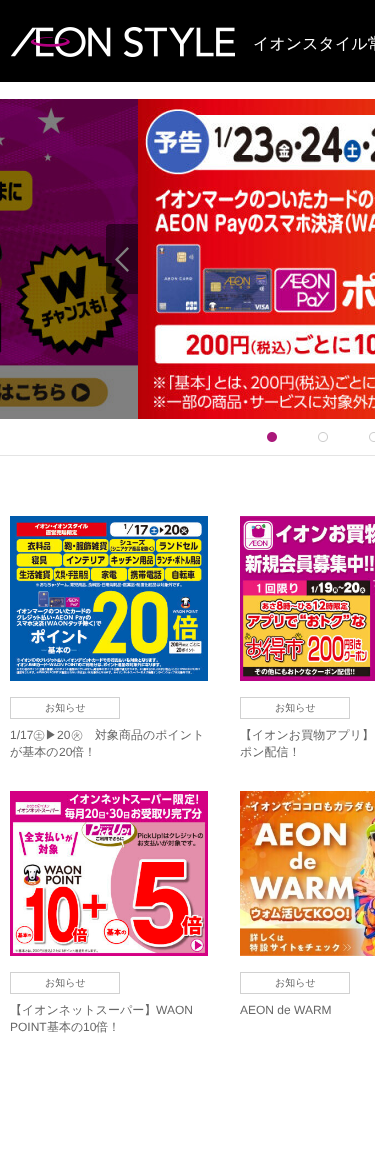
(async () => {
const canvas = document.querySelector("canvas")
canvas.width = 375
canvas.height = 1152
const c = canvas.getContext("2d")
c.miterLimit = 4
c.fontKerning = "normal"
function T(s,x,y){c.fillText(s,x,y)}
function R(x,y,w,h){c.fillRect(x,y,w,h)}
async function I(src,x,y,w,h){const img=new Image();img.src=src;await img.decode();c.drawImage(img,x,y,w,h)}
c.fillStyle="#fff"
R(0,0,375,1152)
c.fillStyle="#808080"
R(0,411,138,8)
c.fillStyle="#000"
R(0,0,375,82)
await I("1.png",11,27,224,30)
c.font="500 16px WenQuanYi Zen Hei"
c.fillStyle="#fff"
T("イオンスタイル常",253,49)
c.fillStyle="#e4e4e4"
R(0,455,375,1)
await I("2.png",0,99,138,312)
await I("3.png",138,99,237,320)
await I("4.png",106,224,32,70)
await I("5.png",267,432,10,10)
await I("6.png",318,432,10,10)
await I("7.png",369,432,6,10)
await I("8.png",10,516,198,165)
c.strokeStyle="#d1d1d1"
c.strokeRect(10.5,697.5,109,21)
c.font="500 10px WenQuanYi Zen Hei"
c.fillStyle="#666"
T("お知らせ",45,711)
c.font="12px Liberation Sans"
T("1/17",10,739)
c.font="500 12px WenQuanYi Zen Hei"
T("㊏▶",33,739)
c.font="12px Liberation Sans"
T("20",57,739)
c.font="500 12px WenQuanYi Zen Hei"
T("㊋　対象商品のポイント",71,739)
T("が基本の",10,756)
c.font="12px Liberation Sans"
T("20",59,756)
c.font="500 12px WenQuanYi Zen Hei"
T("倍！",72,756)
await I("9.png",240,516,135,165)
c.strokeRect(240.5,697.5,109,21)
c.font="500 10px WenQuanYi Zen Hei"
T("お知らせ",275,711)
c.font="500 12px WenQuanYi Zen Hei"
T("【イオンお買物アプリ】",240,739)
T("ポン配信！",240,756)
await I("10.png",10,791,198,165)
c.strokeRect(10.5,972.5,109,21)
c.font="500 10px WenQuanYi Zen Hei"
T("お知らせ",45,986)
c.font="500 12px WenQuanYi Zen Hei"
T("【イオンネットスーパー】",10,1014)
c.font="12px Liberation Sans"
T("WAON",156,1014)
T("POINT",10,1031)
c.font="500 12px WenQuanYi Zen Hei"
T("基本の",47,1031)
c.font="12px Liberation Sans"
T("10",83,1031)
c.font="500 12px WenQuanYi Zen Hei"
T("倍！",96,1031)
await I("11.png",240,791,135,165)
c.strokeRect(240.5,972.5,109,21)
c.font="500 10px WenQuanYi Zen Hei"
T("お知らせ",275,986)
c.font="12px Liberation Sans"
T("AEON de WARM",240,1014)
})()
